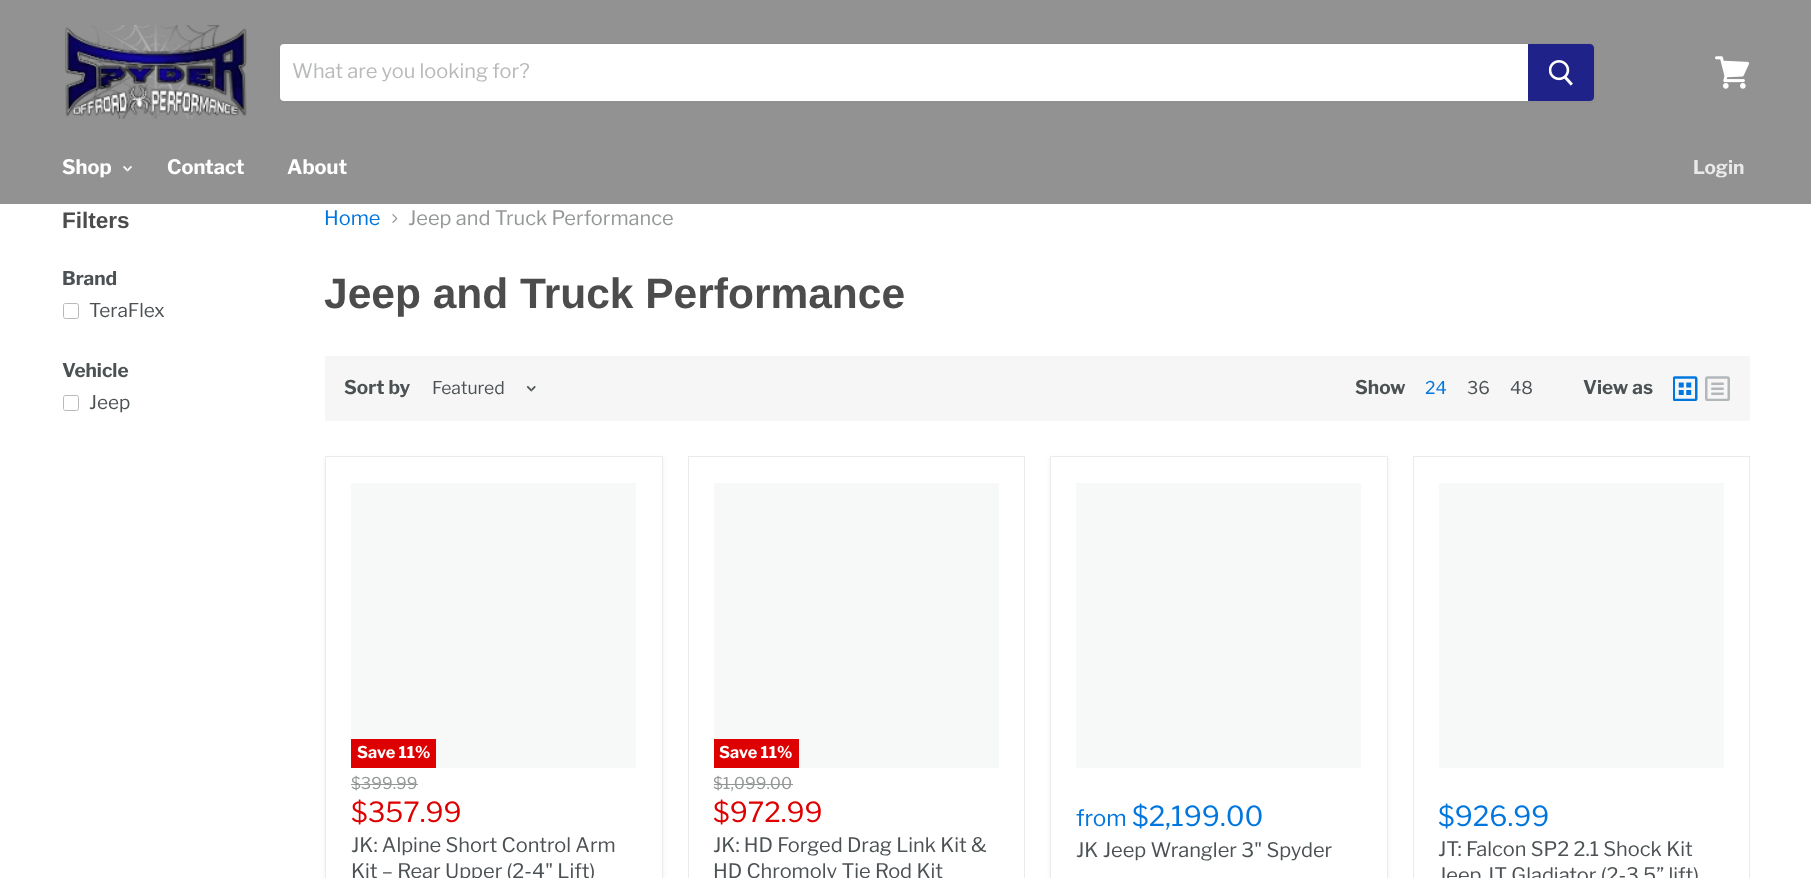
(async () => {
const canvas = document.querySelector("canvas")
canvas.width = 1811
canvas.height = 878
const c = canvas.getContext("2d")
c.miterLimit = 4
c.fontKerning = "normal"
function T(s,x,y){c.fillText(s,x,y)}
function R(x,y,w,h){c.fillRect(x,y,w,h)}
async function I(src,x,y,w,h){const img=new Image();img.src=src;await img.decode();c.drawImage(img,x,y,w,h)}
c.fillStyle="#fff"
R(0,0,1811,878)
c.fillStyle="#929292"
R(0,0,1811,204)
await I("1.png",65,25,182,94)
c.beginPath()
c.roundRect(279.5,43.5,1315,59,[3.5,4.5,4.5,3.5])
c.strokeStyle="#8e8e8e"
c.stroke()
c.fillStyle="#fff"
c.beginPath()
c.roundRect(280,44,1248,57,[4,0,0,4])
c.fill()
c.font="20px Libre Franklin"
c.fillStyle="#b7b9bb"
T("What are you looking for?",292,78)
c.fillStyle="#1f2288"
c.beginPath()
c.roundRect(1528.5,44.5,65,56,[0,3.5,3.5,0])
c.fill()
c.strokeStyle="#1f2288"
c.stroke()
await I("2.png",1549,60,24,26)
await I("3.png",1715,56,35,33)
c.font="bold 20px Libre Franklin"
c.fillStyle="#fff"
T("Shop",62,174)
await I("4.png",123,165,9,7)
T("Contact",167,174)
T("About",287,174)
c.font="bold 19px Libre Franklin"
c.fillStyle="#e9e9e9"
T("Login",1693,174)
c.font="bold 22.5px Arimo"
c.fillStyle="#4c4c4c"
T("Filters",62,228)
c.font="bold 19px Libre Franklin"
c.fillStyle="#4c5154"
T("Brand",62,285)
c.beginPath()
c.roundRect(63.5,303.5,15,15,2)
c.strokeStyle="#b7b9bb"
c.stroke()
c.fillStyle="#eeefef"
R(64,304,1,1)
c.font="19px Libre Franklin"
c.fillStyle="#4c5154"
T("TeraFlex",89,317)
c.font="bold 19px Libre Franklin"
T("Vehicle",62,377)
c.beginPath()
c.roundRect(63.5,395.5,15,15,2)
c.stroke()
await I("5.png",64,396,1,14)
c.font="19px Libre Franklin"
T("Jeep",89,409)
c.font="20px Libre Franklin"
c.fillStyle="#0076de"
T("Home",324,225)
await I("6.png",392,214,6,9)
c.fillStyle="#949798"
T("Jeep and Truck Performance",408,225)
c.font="bold 42.5px Arimo"
c.fillStyle="#4c4c4c"
T("Jeep and Truck Performance",324,308)
c.fillStyle="#f6f6f6"
R(325,356,1425,65)
c.font="bold 19px Libre Franklin"
c.fillStyle="#4c5154"
T("Sort by",344,394)
c.font="17.5px Libre Franklin"
T("Featured",432,394)
await I("7.png",526,385,10,7)
c.font="bold 19px Libre Franklin"
T("Show",1355,394)
c.font="17.5px Libre Franklin"
c.fillStyle="#0076de"
T("24",1425,394)
c.fillStyle="#4c5154"
T("36",1467,394)
T("48",1510,394)
c.font="bold 19px Libre Franklin"
T("View as",1583,394)
await I("8.png",1673,376,25,25)
await I("9.png",1705,376,25,25)
c.fillStyle="#7f7f7f1c"
c.filter="blur(2.5px)"
c.beginPath()
c.rect(325,458,338,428)
c.fill()
c.filter="none"
c.fillStyle="#fff"
c.beginPath()
c.rect(325.5,456.5,337,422)
c.fill()
c.strokeStyle="#ebebeb"
c.stroke()
c.fillStyle="#f7f8f8"
R(351,483,285,285)
c.fillStyle="#de0101"
R(351,739,85,29)
c.font="bold 16.25px Libre Franklin"
c.fillStyle="#fff"
T("Save 11%",357,758)
c.font="16.25px Libre Franklin"
c.fillStyle="#949798"
T("$399.99",351,789)
R(351,784,67,1)
c.font="27.5px Libre Franklin"
c.fillStyle="#de0101"
T("$357.99",351,822)
c.font="20px Libre Franklin"
c.fillStyle="#4c5154"
T("JK: Alpine Short Control Arm",351,852)
T("Kit – Rear Upper (2-4\" Lift)",351,878)
c.strokeStyle="#eaeaea"
c.strokeRect(688.5,456.5,336,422)
c.fillStyle="#f7f8f8"
R(714,483,285,285)
c.fillStyle="#de0101"
R(714,739,85,29)
c.font="bold 16.25px Libre Franklin"
c.fillStyle="#fff"
T("Save 11%",719,758)
c.font="16.25px Libre Franklin"
c.fillStyle="#949798"
T("$1,099.00",713,789)
R(714,784,79,1)
c.font="27.5px Libre Franklin"
c.fillStyle="#de0101"
T("$972.99",713,822)
c.font="20px Libre Franklin"
c.fillStyle="#4c5154"
T("JK: HD Forged Drag Link Kit &",713,852)
T("HD Chromoly Tie Rod Kit",713,878)
c.fillStyle="#7f7f7f1c"
c.filter="blur(2.5px)"
c.beginPath()
c.rect(1050,458,338,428)
c.fill()
c.filter="none"
c.fillStyle="#fff"
c.beginPath()
c.rect(1050.5,456.5,337,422)
c.fill()
c.strokeStyle="#ebebeb"
c.stroke()
c.fillStyle="#f7f8f8"
R(1076,483,285,285)
c.font="22.5px Libre Franklin"
c.fillStyle="#0076de"
T("from",1076,826)
c.font="27.5px Libre Franklin"
T("$2,199.00",1132,826)
c.font="20px Libre Franklin"
c.fillStyle="#4c5154"
T("JK Jeep Wrangler 3\" Spyder",1076,857)
c.strokeStyle="#eaeaea"
c.strokeRect(1413.5,456.5,336,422)
c.fillStyle="#f7f8f8"
R(1439,483,285,285)
c.font="27.5px Libre Franklin"
c.fillStyle="#0076de"
T("$926.99",1438,826)
c.font="20px Libre Franklin"
c.fillStyle="#4c5154"
T("JT: Falcon SP2 2.1 Shock Kit",1438,856)
T("Jeep JT Gladiator (2-3.5” lift)",1438,882)
})()
